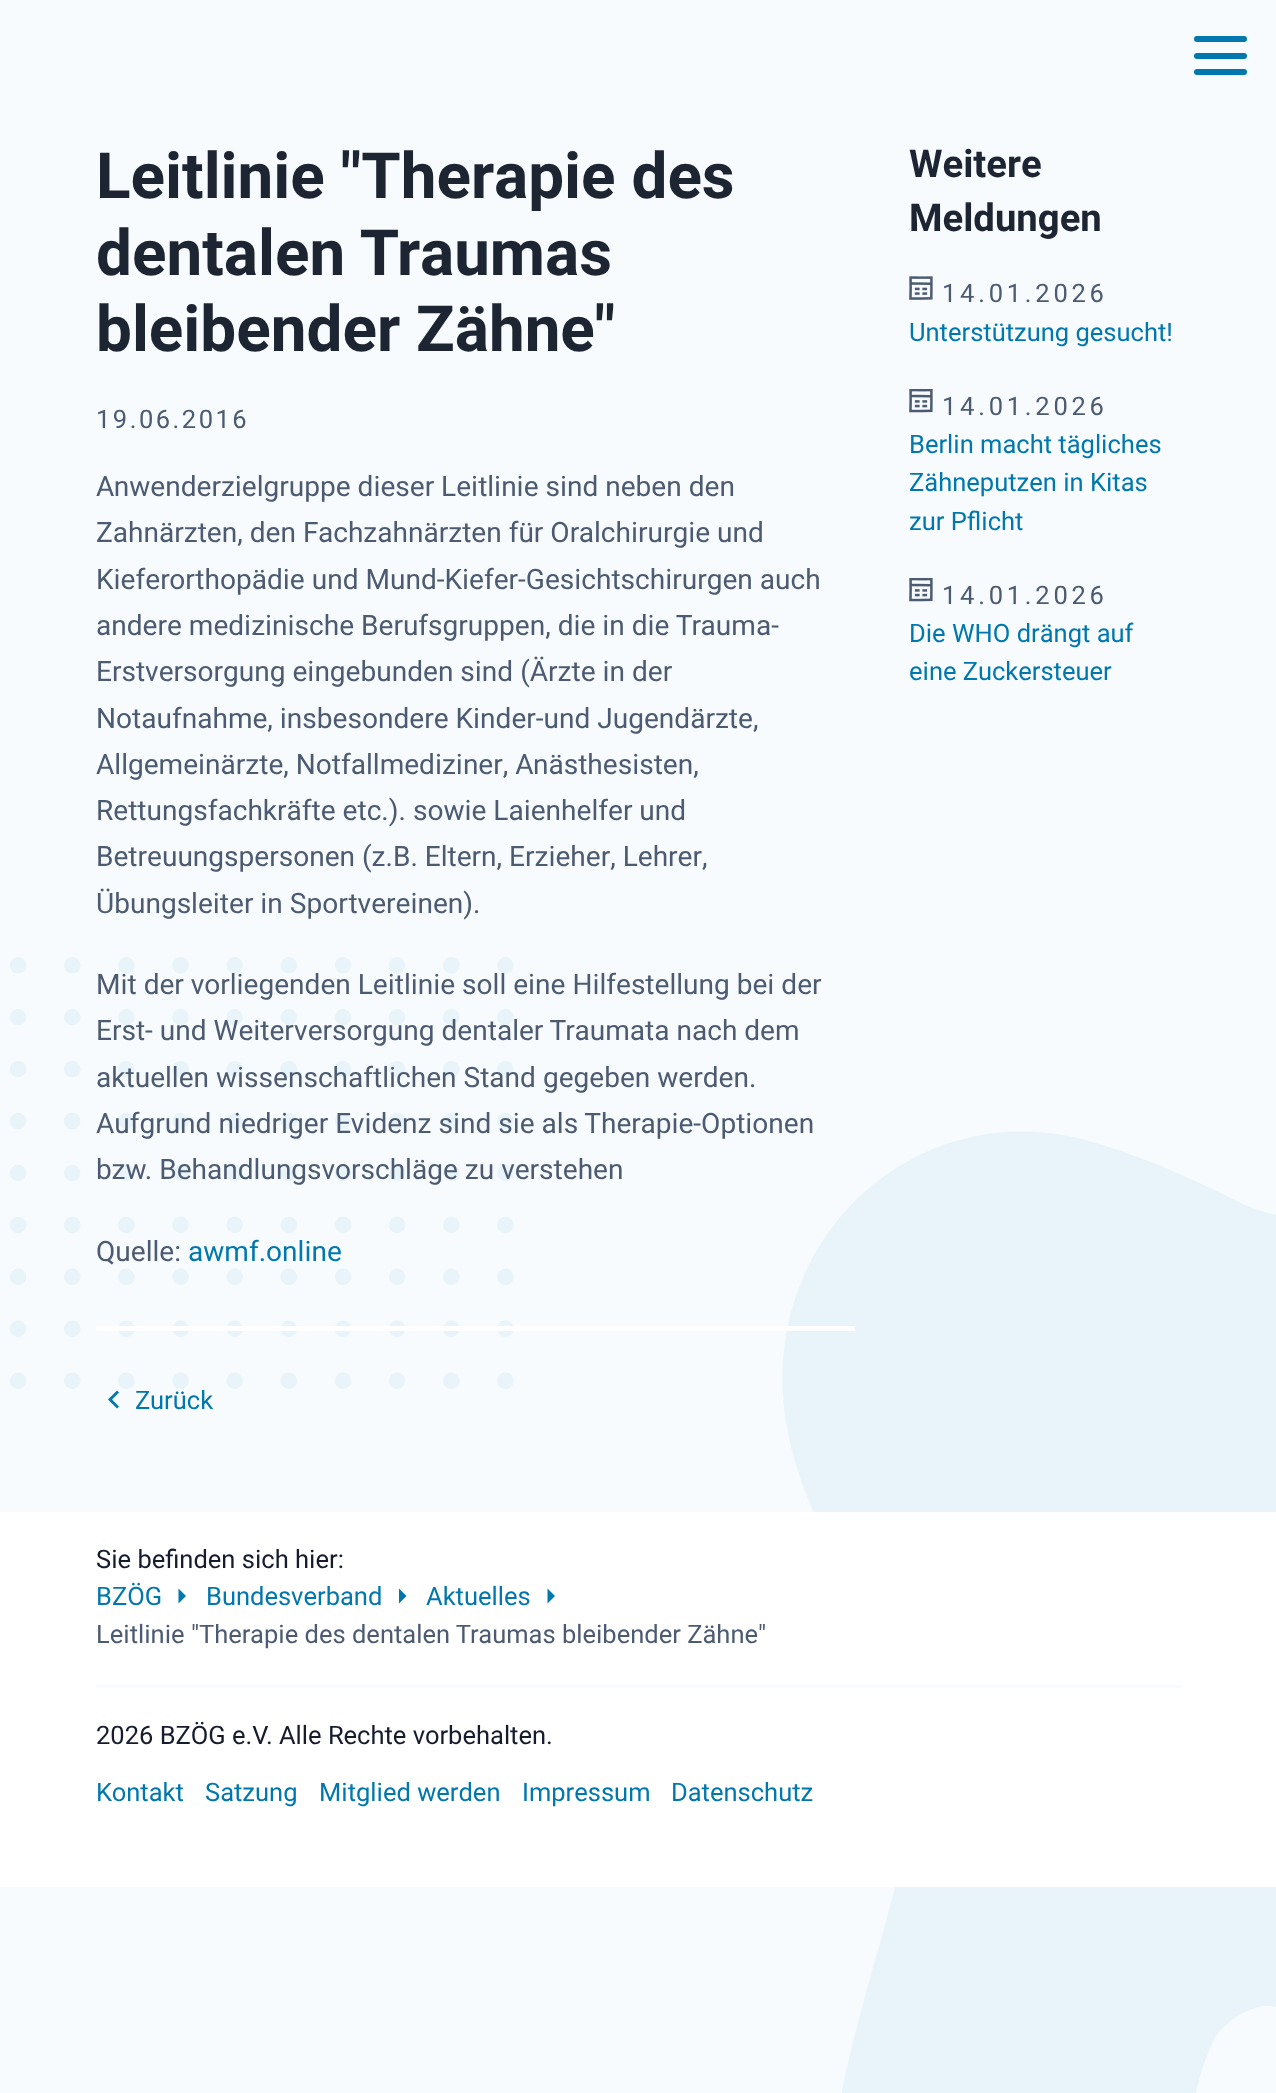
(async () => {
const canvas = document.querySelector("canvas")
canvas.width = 1276
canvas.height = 2093
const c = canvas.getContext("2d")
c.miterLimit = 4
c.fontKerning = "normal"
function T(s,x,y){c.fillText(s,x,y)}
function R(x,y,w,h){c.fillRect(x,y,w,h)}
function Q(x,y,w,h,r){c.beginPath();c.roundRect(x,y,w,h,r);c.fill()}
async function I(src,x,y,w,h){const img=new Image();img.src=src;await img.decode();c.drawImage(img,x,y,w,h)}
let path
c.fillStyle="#f7fbfe"
R(0,0,1276,2093)
await I("1.png",9,957,1267,1136)
c.fillStyle="#0077ad"
Q(1194,36,53,6,3)
Q(1194,53,53,6,3)
Q(1194,69,53,6,3)
c.font="bold 63.75px Heebo"
c.fillStyle="#1d2432"
T("Leitlinie \"Therapie des",96,198)
T("dentalen Traumas",96,275)
T("bleibender Zähne\"",96,351)
c.letterSpacing="2.5px"
c.font="25.5px Heebo"
c.fillStyle="#4c5b71"
T("19.06.2016",96,428)
c.letterSpacing="0px"
c.font="28.05px Heebo"
T("Anwenderzielgruppe dieser Leitlinie sind neben den",96,496)
T("Zahnärzten, den Fachzahnärzten für Oralchirurgie und",96,542)
T("Kieferorthopädie und Mund-Kiefer-Gesichtschirurgen auch",96,589)
T("andere medizinische Berufsgruppen, die in die Trauma-",96,635)
T("Erstversorgung eingebunden sind (Ärzte in der",96,681)
T("Notaufnahme, insbesondere Kinder-und Jugendärzte,",96,728)
T("Allgemeinärzte, Notfallmediziner, Anästhesisten,",96,774)
T("Rettungsfachkräfte etc.). sowie Laienhelfer und",96,820)
T("Betreuungspersonen (z.B. Eltern, Erzieher, Lehrer,",96,866)
T("Übungsleiter in Sportvereinen).",96,913)
T("Mit der vorliegenden Leitlinie soll eine Hilfestellung bei der",96,994)
T("Erst- und Weiterversorgung dentaler Traumata nach dem",96,1040)
T("aktuellen wissenschaftlichen Stand gegeben werden.",96,1087)
T("Aufgrund niedriger Evidenz sind sie als Therapie-Optionen",96,1133)
T("bzw. Behandlungsvorschläge zu verstehen",96,1179)
T("Quelle:",96,1261)
c.fillStyle="#0077ad"
T("awmf.online",188,1261)
c.fillStyle="#fff"
R(96,1326,759,5)
c.font="25.5px Heebo"
c.fillStyle="#0077ad"
T("Zurück",135,1409)
path = new Path2D("M119 1392.5l-2-2l-9 9l9 9l2-2l-7-7z")
c.fill(path)
c.font="bold 38.25px Heebo"
c.fillStyle="#1d2432"
T("Weitere",909,177)
T("Meldungen",909,231)
await I("2.png",909,276,24,24)
c.letterSpacing="3.75px"
c.font="25.5px Heebo"
c.fillStyle="#4c5b71"
T("14.01.2026",942,302)
c.letterSpacing="0px"
c.fillStyle="#0077ad"
T("Unterstützung gesucht!",909,341)
await I("3.png",909,389,24,24)
c.letterSpacing="3.75px"
c.fillStyle="#4c5b71"
T("14.01.2026",942,415)
c.letterSpacing="0px"
c.fillStyle="#0077ad"
T("Berlin macht tägliches",909,453)
T("Zähneputzen in Kitas",909,491)
T("zur Pflicht",909,530)
await I("3.png",909,578,24,24)
c.letterSpacing="3.75px"
c.fillStyle="#4c5b71"
T("14.01.2026",942,604)
c.letterSpacing="0px"
c.fillStyle="#0077ad"
T("Die WHO drängt auf",909,642)
T("eine Zuckersteuer",909,680)
c.fillStyle="#fff"
R(0,1512,1276,375)
c.fillStyle="#f7fbfe"
R(96,1685,1085,3)
c.fillStyle="#161c2d"
T("Sie befinden sich hier:",96,1568)
c.fillStyle="#0077ad"
T("BZÖG",96,1605)
path = new Path2D("M178.5 1603.5l7.5-7.5l-7.5-7.5z")
c.fill(path)
T("Bundesverband",206,1605)
path = new Path2D("M399 1603.5l7.5-7.5l-7.5-7.5z")
c.fill(path)
T("Aktuelles",426,1605)
path = new Path2D("M547.5 1603.5l7.5-7.5l-7.5-7.5z")
c.fill(path)
c.fillStyle="#4c5b71"
T("Leitlinie \"Therapie des dentalen Traumas bleibender Zähne\"",96,1643)
c.fillStyle="#161c2d"
T("2026 BZÖG e.V. Alle Rechte vorbehalten.",96,1744)
c.fillStyle="#0077ad"
T("Kontakt",96,1801)
T("Satzung",205,1801)
T("Mitglied werden",319,1801)
T("Impressum",522,1801)
T("Datenschutz",671,1801)
})()
